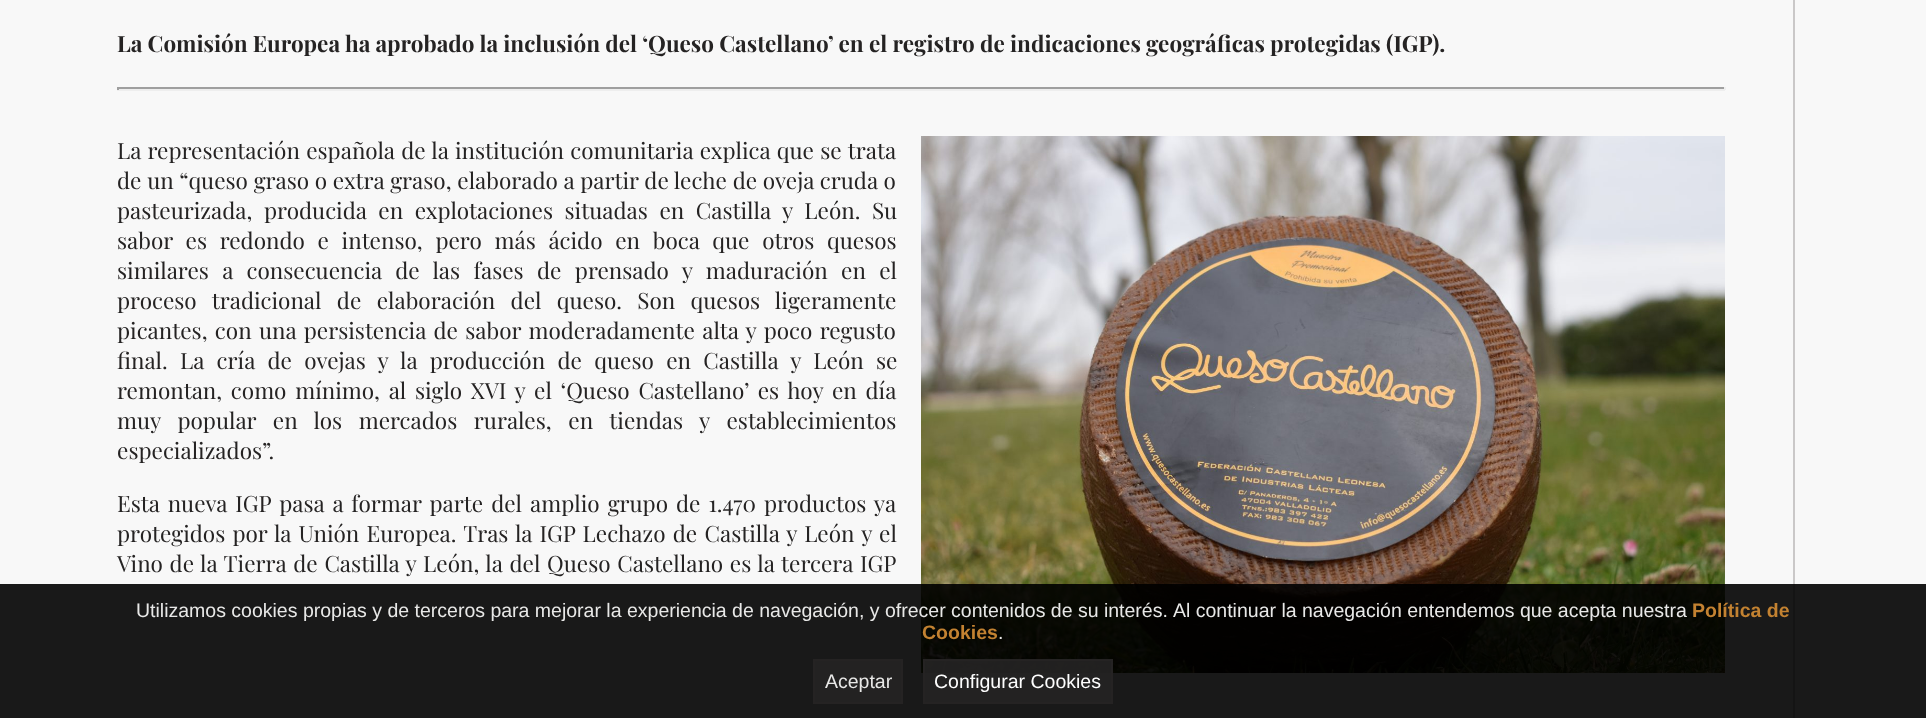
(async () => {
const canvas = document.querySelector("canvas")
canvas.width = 1926
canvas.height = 718
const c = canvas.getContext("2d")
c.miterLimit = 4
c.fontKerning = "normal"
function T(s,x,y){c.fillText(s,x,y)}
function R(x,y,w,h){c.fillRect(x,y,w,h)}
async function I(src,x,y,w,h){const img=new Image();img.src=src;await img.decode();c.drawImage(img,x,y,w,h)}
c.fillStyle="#f8f8f8"
R(0,0,1926,718)
c.fillStyle="#cac8c8"
R(1793,0,2,718)
c.font="bold 22.5px Playfair Display"
c.fillStyle="#252323"
T("La Comisión Europea ha aprobado la inclusión del ‘Queso Castellano’ en el registro de indicaciones geográficas protegidas (IGP).",117,52)
c.fillStyle="#9f9f9f"
R(117,87,1608,2)
c.fillStyle="#eee"
R(1724,87,2,3)
R(117,89,1608,2)
c.fillStyle="#9f9f9f"
R(117,87,2,3)
c.wordSpacing="0.75px"
c.font="22.5px Playfair Display"
c.fillStyle="#252323"
T("La representación española de la institución comunitaria explica que se trata",117,159)
c.wordSpacing="0.1px"
T("de un “queso graso o extra graso, elaborado a partir de leche de oveja cruda o",117,189)
c.wordSpacing="6px"
T("pasteurizada, producida en explotaciones situadas en Castilla y León. Su",117,219)
c.wordSpacing="7.1px"
T("sabor es redondo e intenso, pero más ácido en boca que otros quesos",117,249)
c.wordSpacing="7.75px"
T("similares a consecuencia de las fases de prensado y maduración en el",117,279)
c.wordSpacing="9.75px"
T("proceso tradicional de elaboración del queso. Son quesos ligeramente",117,309)
c.wordSpacing="1.75px"
T("picantes, con una persistencia de sabor moderadamente alta y poco regusto",117,339)
c.wordSpacing="6.75px"
T("final. La cría de ovejas y la producción de queso en Castilla y León se",117,369)
c.wordSpacing="3.1px"
T("remontan, como mínimo, al siglo XVI y el ‘Queso Castellano’ es hoy en día",117,399)
c.wordSpacing="11px"
T("muy popular en los mercados rurales, en tiendas y establecimientos",117,429)
c.wordSpacing="0px"
T("especializados”.",117,459)
c.wordSpacing="2.4px"
T("Esta nueva IGP pasa a formar parte del amplio grupo de 1.470 productos ya",117,512)
c.wordSpacing="1.6px"
T("protegidos por la Unión Europea. Tras la IGP Lechazo de Castilla y León y el",117,542)
c.wordSpacing="1.1px"
T("Vino de la Tierra de Castilla y León, la del Queso Castellano es la tercera IGP",117,572)
await I("1.png",921,136,804,537)
c.fillStyle="#000000e6"
R(0,584,1926,134)
c.wordSpacing="0px"
c.font="19.5px Liberation Sans"
c.fillStyle="#e8e8e7"
T("Utilizamos cookies propias y de terceros para mejorar la experiencia de navegación, y ofrecer contenidos de su interés.",136,617)
T("Al continuar la navegación entendemos que acepta nuestra",1173,617)
c.font="bold 19.5px Liberation Sans"
c.fillStyle="#c38231"
T("Política de",1692,617)
T("Cookies",922,639)
c.font="19.5px Liberation Sans"
c.fillStyle="#e8e8e7"
T(".",998,639)
c.fillStyle="#252323e6"
c.beginPath()
c.rect(814,660,88,43)
c.fill()
c.strokeStyle="#252323"
c.lineWidth=2
c.stroke()
c.fillStyle="#e8e8e7"
T("Aceptar",825,688)
c.fillStyle="#252323e6"
c.beginPath()
c.rect(924,660,188,43)
c.fill()
c.stroke()
c.fillStyle="#fefefe"
T("Configurar Cookies",934,688)
})()
